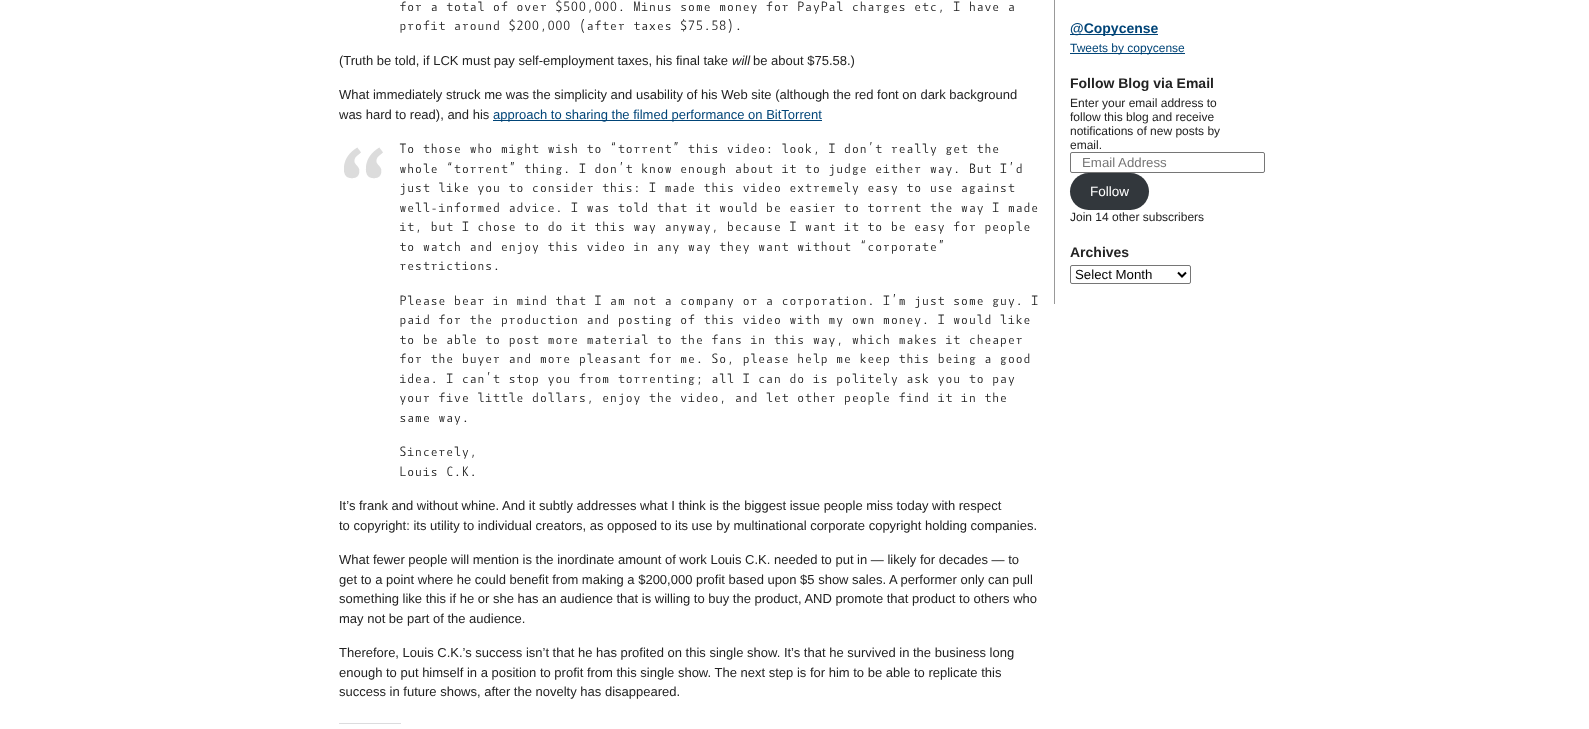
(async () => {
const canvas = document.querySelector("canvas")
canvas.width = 1589
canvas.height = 729
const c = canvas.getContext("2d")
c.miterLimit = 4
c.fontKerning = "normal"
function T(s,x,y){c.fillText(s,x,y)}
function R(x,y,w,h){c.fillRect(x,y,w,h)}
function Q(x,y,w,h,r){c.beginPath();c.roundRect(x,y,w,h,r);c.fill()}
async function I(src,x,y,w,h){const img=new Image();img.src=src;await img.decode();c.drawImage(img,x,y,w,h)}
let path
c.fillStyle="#fff"
R(0,0,1589,729)
c.font="13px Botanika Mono"
c.fillStyle="#222"
T("for a total of over $500,000. Minus some money for PayPal charges etc, I have a",399,11)
T("profit around $200,000 (after taxes $75.58).",399,30)
c.font="13px Liberation Sans"
T("(Truth be told, if LCK must pay self-employment taxes, his final take",339,65)
c.font="italic 13px Liberation Sans"
T("will",732,65)
c.font="13px Liberation Sans"
T("be about $75.58.)",753,65)
T("What immediately struck me was the simplicity and usability of his Web site (although the red font on dark background",339,99)
T("was hard to read), and his",339,119)
c.fillStyle="#047"
R(493,120,329,1)
T("approach to sharing the filmed performance on BitTorrent",493,119)
await I("1.png",344,147,39,32)
c.font="13px Botanika Mono"
c.fillStyle="#222"
T("To those who might wish to “torrent” this video: look, I don’t really get the",399,153)
T("whole “torrent” thing. I don’t know enough about it to judge either way. But I’d",399,173)
T("just like you to consider this: I made this video extremely easy to use against",399,192)
T("well-informed advice. I was told that it would be easier to torrent the way I made",399,212)
T("it, but I chose to do it this way anyway, because I want it to be easy for people",399,231)
T("to watch and enjoy this video in any way they want without “corporate”",399,251)
T("restrictions.",399,270)
T("Please bear in mind that I am not a company or a corporation. I’m just some guy. I",399,305)
T("paid for the production and posting of this video with my own money. I would like",399,324)
T("to be able to post more material to the fans in this way, which makes it cheaper",399,344)
T("for the buyer and more pleasant for me. So, please help me keep this being a good",399,363)
T("idea. I can’t stop you from torrenting; all I can do is politely ask you to pay",399,383)
T("your five little dollars, enjoy the video, and let other people find it in the",399,402)
T("same way.",399,422)
T("Sincerely,",399,456)
T("Louis C.K.",399,476)
c.font="13px Liberation Sans"
T("It’s frank and without whine. And it subtly addresses what I think is the biggest issue people miss today with respect",339,510)
T("to copyright: its utility to individual creators, as opposed to its use by multinational corporate copyright holding companies.",339,530)
T("What fewer people will mention is the inordinate amount of work Louis C.K. needed to put in — likely for decades — to",339,564)
T("get to a point where he could benefit from making a $200,000 profit based upon $5 show sales. A performer only can pull",339,584)
T("something like this if he or she has an audience that is willing to buy the product, AND promote that product to others who",339,603)
T("may not be part of the audience.",339,623)
T("Therefore, Louis C.K.’s success isn’t that he has profited on this single show. It’s that he survived in the business long",339,657)
T("enough to put himself in a position to profit from this single show. The next step is for him to be able to replicate this",339,677)
T("success in future shows, after the novelty has disappeared.",339,696)
c.fillStyle="#dcdcde"
R(339,723,62,1)
c.fillStyle="#999"
R(1054,0,1,304)
c.fillStyle="#047"
R(1070,34,88,1)
c.font="bold 14px Liberation Sans"
T("@Copycense",1070,33)
R(1070,53,115,1)
c.font="12px Liberation Sans"
T("Tweets by copycense",1070,52)
c.font="bold 14px Liberation Sans"
c.fillStyle="#222"
T("Follow Blog via Email",1070,88)
c.font="12px Liberation Sans"
T("Enter your email address to",1070,107)
T("follow this blog and receive",1070,121)
T("notifications of new posts by",1070,135)
T("email.",1070,149)
c.beginPath()
c.roundRect(1070.5,152.5,194,20,1.5)
c.strokeStyle="#767676"
c.stroke()
c.font="13.25px Liberation Sans"
c.fillStyle="#757575"
T("Email Address",1082,167)
c.fillStyle="#32373c"
Q(1070,173,79,37,18.5)
c.font="13.5px Liberation Sans"
c.fillStyle="#fff"
T("Follow",1090,196)
c.font="12px Liberation Sans"
c.fillStyle="#222"
T("Join 14 other subscribers",1070,221)
c.font="bold 14px Liberation Sans"
T("Archives",1070,257)
c.beginPath()
c.roundRect(1070.5,265.5,120,18,1.5)
c.stroke()
path = new Path2D("M1178 272.5l4 4l4-4")
c.strokeStyle="#000"
c.lineWidth=2
c.stroke(path)
c.font="13.25px Liberation Sans"
c.fillStyle="#000"
T("Select Month",1075,279)
})()
